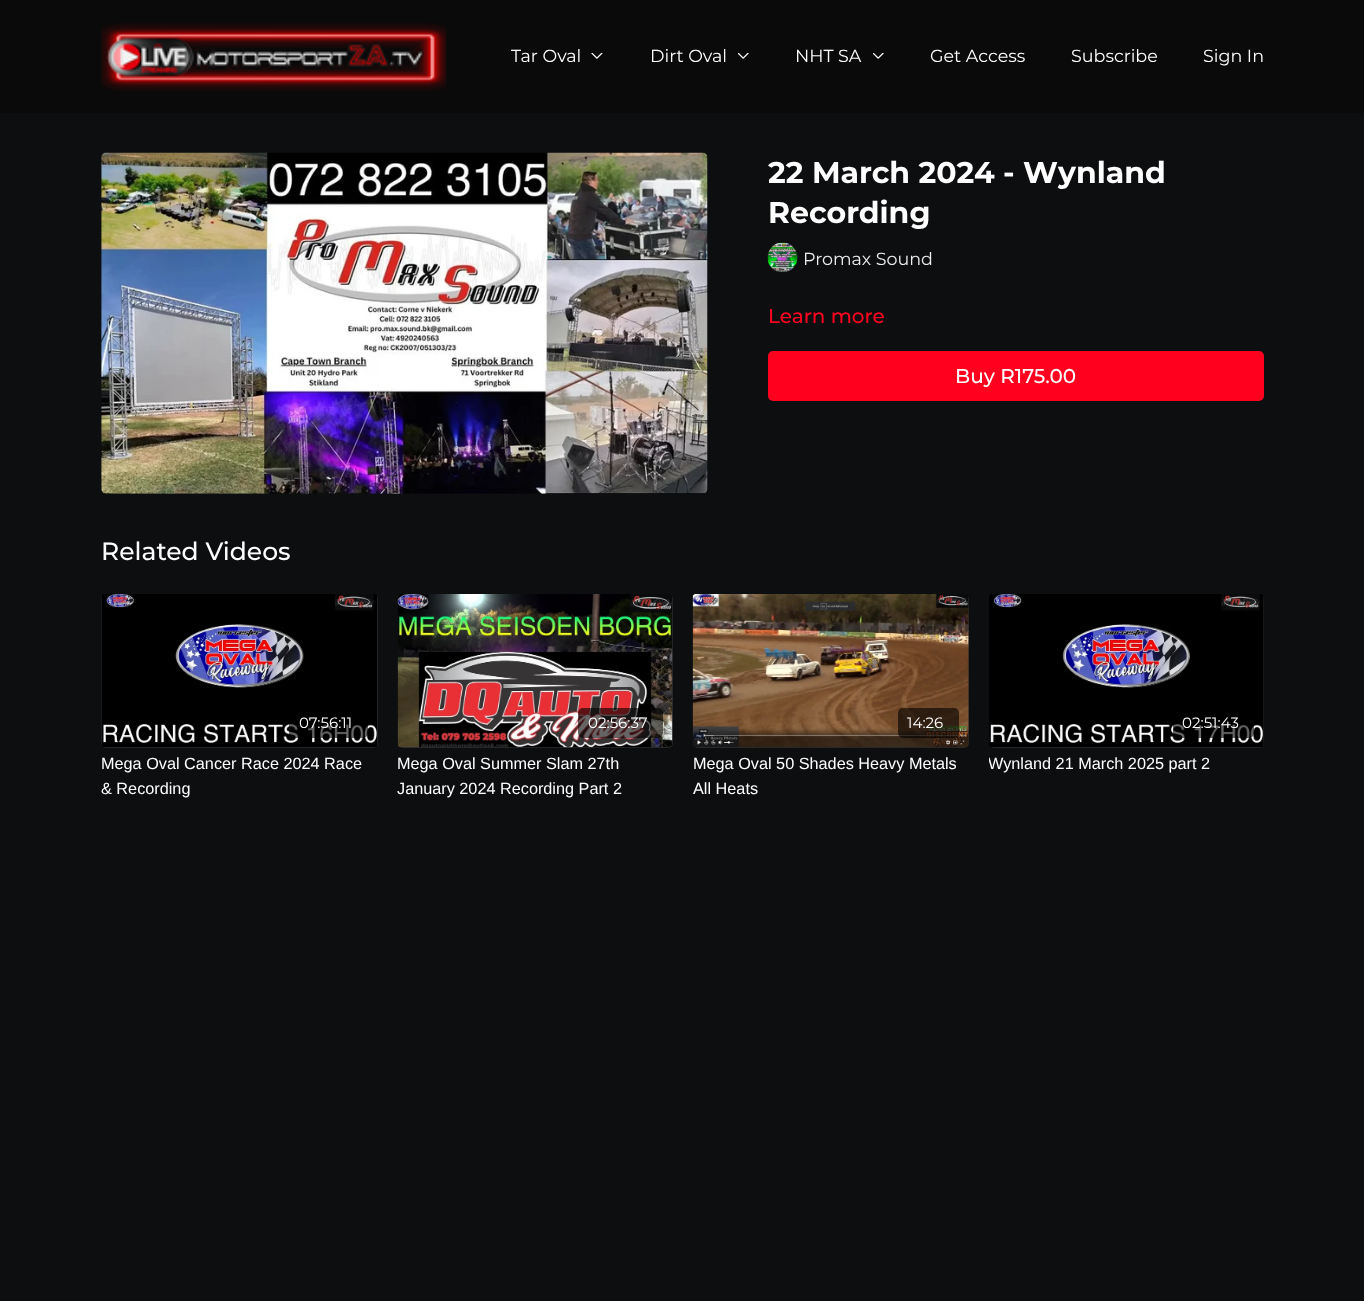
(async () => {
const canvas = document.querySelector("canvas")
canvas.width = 1364
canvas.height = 1301
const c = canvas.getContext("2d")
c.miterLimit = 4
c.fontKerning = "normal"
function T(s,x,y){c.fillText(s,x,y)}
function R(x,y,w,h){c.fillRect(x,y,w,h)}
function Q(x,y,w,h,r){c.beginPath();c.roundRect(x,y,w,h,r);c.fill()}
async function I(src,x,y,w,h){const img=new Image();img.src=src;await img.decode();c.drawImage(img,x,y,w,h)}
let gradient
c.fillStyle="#0d0e10"
R(0,0,1364,1301)
c.fillStyle="#0b0a0a"
R(0,0,1364,113)
await I("1.png",101,23,346,69)
c.font="17.5px Montserrat"
c.fillStyle="#fff"
T("Tar Oval",511,62)
await I("2.png",591,53,12,6)
T("Dirt Oval",650,62)
await I("3.png",738,53,11,6)
T("NHT SA",795,62)
await I("3.png",873,53,11,6)
T("Get Access",930,62)
T("Subscribe",1071,62)
T("Sign In",1203,62)
await I("4.png",101,152,607,342)
c.font="bold 30px Montserrat"
T("22 March 2024 - Wynland",768,183)
T("Recording",768,223)
await I("5.png",767,242,31,31)
c.font="17.5px Montserrat"
c.fillStyle="#eee"
T("Promax Sound",803,265)
c.font="500 20px Montserrat"
c.fillStyle="#ff001f"
T("Learn more",768,323)
Q(768,351,496,50,5)
c.fillStyle="#fff"
T("Buy R175.00",955,383)
c.font="500 25px Montserrat"
T("Related Videos",101,560)
gradient = c.createLinearGradient(101,671,378,671)
gradient.addColorStop(.08,"#2c2d2f")
gradient.addColorStop(.18,"#2a2b2d")
gradient.addColorStop(.33,"#28292a")
c.fillStyle = gradient
Q(101,594,277,154,5)
await I("6.png",101,594,277,154)
c.fillStyle="#00000099"
Q(289,708,79,30,5)
c.font="15px Montserrat"
c.fillStyle="#fff"
T("07:56:11",299,728)
c.font="16.25px Liberation Sans"
T("Mega Oval Cancer Race 2024 Race",101,769)
T("& Recording",101,794)
gradient = c.createLinearGradient(398,671,673,671)
gradient.addColorStop(.08,"#2c2d2f")
gradient.addColorStop(.18,"#2a2b2d")
gradient.addColorStop(.33,"#28292a")
c.fillStyle = gradient
Q(398,594,275,154,5)
await I("7.png",397,594,276,154)
c.fillStyle="#00000099"
Q(578,708,85,30,5)
c.font="15px Montserrat"
c.fillStyle="#fff"
T("02:56:37",588,728)
c.font="16.25px Liberation Sans"
T("Mega Oval Summer Slam 27th",397,769)
T("January 2024 Recording Part 2",397,794)
gradient = c.createLinearGradient(693,671,969,671)
gradient.addColorStop(.08,"#2c2d2f")
gradient.addColorStop(.18,"#2a2b2d")
gradient.addColorStop(.33,"#28292a")
c.fillStyle = gradient
Q(693,594,276,154,5)
await I("8.png",692,594,277,154)
c.fillStyle="#00000099"
Q(898,708,61,30,5)
c.font="15px Montserrat"
c.fillStyle="#fff"
T("14:26",907,728)
c.font="16.25px Liberation Sans"
T("Mega Oval 50 Shades Heavy Metals",693,769)
T("All Heats",693,794)
gradient = c.createLinearGradient(989,671,1264,671)
gradient.addColorStop(.08,"#2c2d2f")
gradient.addColorStop(.18,"#2a2b2d")
gradient.addColorStop(.33,"#28292a")
c.fillStyle = gradient
Q(989,594,275,154,5)
await I("9.png",989,594,275,154)
c.fillStyle="#00000099"
Q(1173,708,81,30,5)
c.font="15px Montserrat"
c.fillStyle="#fff"
T("02:51:43",1182,728)
c.save()
c.beginPath()
c.rect(989,751,275,25)
c.clip()
c.font="16.25px Liberation Sans"
T("Wynland 21 March 2025 part 2",988,769)
c.restore()
})()
